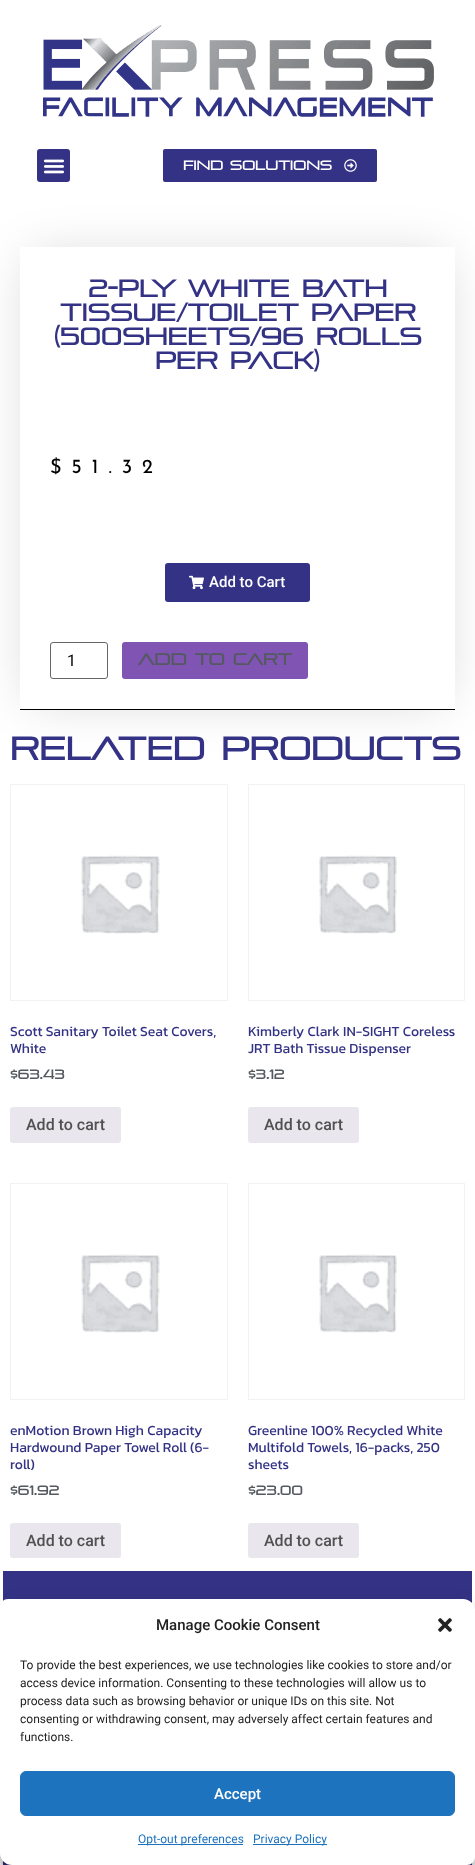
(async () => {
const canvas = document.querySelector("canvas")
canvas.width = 475
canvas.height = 1865
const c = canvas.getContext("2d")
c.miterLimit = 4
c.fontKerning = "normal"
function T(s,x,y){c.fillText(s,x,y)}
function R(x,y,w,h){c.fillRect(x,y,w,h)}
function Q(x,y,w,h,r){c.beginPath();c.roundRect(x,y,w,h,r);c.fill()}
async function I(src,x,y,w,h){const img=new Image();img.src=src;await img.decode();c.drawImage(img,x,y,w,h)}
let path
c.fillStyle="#fff"
R(0,0,475,1865)
await I("1.png",43,25,391,92)
c.save()
path = new Path2D("M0 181h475v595h-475zm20 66h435v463h-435z")
c.clip(path,"evenodd")
c.fillStyle="#0000002b"
c.filter="blur(25px)"
c.beginPath()
c.rect(30,257,415,443)
c.fill()
c.filter="none"
c.restore()
c.fillStyle="#333285"
Q(37,149,33,33,3)
await I("2.png",43,159,22,15)
Q(163,149,214,33,2)
c.font="bold 13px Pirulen"
c.fillStyle="#fff"
T("Find Solutions",183,170)
await I("3.png",344,159,13,13)
c.fillStyle="#000"
R(20,709,435,1)
c.font="bold 24px Pirulen"
c.fillStyle="#333285"
T("2-Ply White Bath",88,297)
T("Tissue/Toilet Paper",60,321)
T("(500sheets/96 Rolls",53,345)
T("per Pack)",155,369)
c.letterSpacing="10px"
c.font="20px Josefin Sans"
c.fillStyle="#000"
T("$51.32",50,473)
c.fillStyle="#333285"
Q(165,563,145,39,3)
await I("4.png",189,575,15,15)
c.letterSpacing="0px"
c.font="500 15px Roboto"
c.fillStyle="#fff"
T("Add to Cart",209,587)
c.beginPath()
c.roundRect(50.5,642.5,57,36,2.5)
c.strokeStyle="#666"
c.stroke()
c.font="16px Roboto"
c.fillStyle="#000"
T("1",67,666)
c.fillStyle="#7f54b3"
Q(122,642,186,37,3)
c.font="bold 16px Pirulen"
c.fillStyle="#54595f"
T("Add to cart",138,665)
c.font="bold 32px Pirulen"
c.fillStyle="#333285"
T("Related products",10,760)
c.strokeStyle="#f2f2f2"
c.strokeRect(10.5,784.5,217,216)
await I("5.png",81,855,79,79)
c.font="14px Kanit"
T("Scott Sanitary Toilet Seat Covers,",10,1036)
T("White",10,1053)
c.font="bold 13px Pirulen"
c.fillStyle="#54595f"
T("$63.43",10,1079)
c.fillStyle="#e9e6ed"
Q(10,1107,111,36,3)
c.font="500 16px Roboto"
c.fillStyle="#515151"
T("Add to cart",26,1130)
c.strokeRect(248.5,784.5,216,216)
await I("6.png",319,855,78,79)
c.font="14px Kanit"
c.fillStyle="#333285"
T("Kimberly Clark IN-SIGHT Coreless",248,1036)
T("JRT Bath Tissue Dispenser",248,1053)
c.font="bold 13px Pirulen"
c.fillStyle="#54595f"
T("$3.12",248,1079)
c.fillStyle="#e9e6ed"
Q(248,1107,111,36,3)
c.font="500 16px Roboto"
c.fillStyle="#515151"
T("Add to cart",264,1130)
c.strokeRect(10.5,1183.5,217,216)
await I("5.png",81,1254,79,79)
c.font="14px Kanit"
c.fillStyle="#333285"
T("enMotion Brown High Capacity",10,1435)
T("Hardwound Paper Towel Roll (6-",10,1452)
T("roll)",10,1469)
c.font="bold 13px Pirulen"
c.fillStyle="#54595f"
T("$61.92",10,1495)
c.fillStyle="#e9e6ed"
Q(10,1523,111,35,3)
c.font="500 16px Roboto"
c.fillStyle="#515151"
T("Add to cart",26,1546)
c.strokeRect(248.5,1183.5,216,216)
await I("6.png",319,1254,78,79)
c.font="14px Kanit"
c.fillStyle="#333285"
T("Greenline 100% Recycled White",248,1435)
T("Multifold Towels, 16-packs, 250",248,1452)
T("sheets",248,1469)
c.font="bold 13px Pirulen"
c.fillStyle="#54595f"
T("$23.00",248,1495)
c.fillStyle="#e9e6ed"
Q(248,1523,111,35,3)
c.font="500 16px Roboto"
c.fillStyle="#515151"
T("Add to cart",264,1546)
c.fillStyle="#333285"
R(3,1571,469,294)
c.fillStyle="#0000003b"
c.filter="blur(3px)"
c.beginPath()
c.roundRect(0,1605,475,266,12)
c.fill()
c.filter="none"
c.fillStyle="#00000030"
c.filter="blur(10px)"
c.beginPath()
c.roundRect(0,1609,475,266,12)
c.fill()
c.filter="none"
c.fillStyle="#fff"
c.beginPath()
c.roundRect(0,1599,475,266,[8,12,8,12])
c.fill()
c.font="500 15px Roboto"
c.fillStyle="#222"
T("Manage Cookie Consent",156,1630)
await I("7.png",438,1618,14,14)
c.font="12px Roboto"
T("To provide the best experiences, we use technologies like cookies to store and/or",20,1669)
T("access device information. Consenting to these technologies will allow us to",20,1687)
T("process data such as browsing behavior or unique IDs on this site. Not",20,1705)
T("consenting or withdrawing consent, may adversely affect certain features and",20,1723)
T("functions.",20,1741)
c.fillStyle="#1e73be"
c.beginPath()
c.roundRect(20.5,1771.5,434,44,5.5)
c.fill()
c.strokeStyle="#1e73be"
c.stroke()
c.font="500 15px Roboto"
c.fillStyle="#fff"
T("Accept",214,1799)
c.fillStyle="#1e73be"
R(138,1844,105,1)
c.font="12px Roboto"
T("Opt-out preferences",138,1843)
R(253,1844,74,1)
T("Privacy Policy",253,1843)
})()
